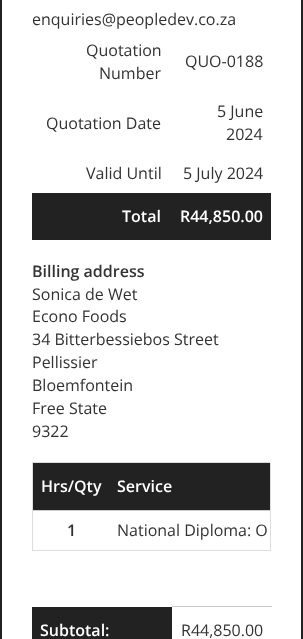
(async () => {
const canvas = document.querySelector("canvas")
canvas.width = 303
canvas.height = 639
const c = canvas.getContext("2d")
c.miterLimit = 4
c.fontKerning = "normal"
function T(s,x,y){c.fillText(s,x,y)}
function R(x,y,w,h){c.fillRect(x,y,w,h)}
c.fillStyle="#fff"
R(0,0,303,639)
c.strokeStyle="#222"
c.lineWidth=2
c.strokeRect(1,-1,301,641)
c.font="16px Open Sans"
c.fillStyle="#333"
T("enquiries@peopledev.co.za",32,25)
T("Quotation",86,56)
T("Number",99,79)
T("QUO-0188",185,67)
T("Quotation Date",46,129)
T("5 June",217,117)
T("2024",226,140)
T("Valid Until",86,179)
T("5 July 2024",183,179)
c.fillStyle="#222"
R(32,193,239,47)
c.font="600 16px Open Sans"
c.fillStyle="#fff"
T("Total",122,222)
T("R44,850.00",180,222)
c.fillStyle="#333"
T("Billing address",32,277)
c.font="16px Open Sans"
T("Sonica de Wet",32,300)
T("Econo Foods",32,322)
T("34 Bitterbessiebos Street",32,345)
T("Pellissier",32,368)
T("Bloemfontein",32,391)
T("Free State",32,414)
T("9322",32,437)
c.strokeStyle="#ddd"
c.lineWidth=1
c.strokeRect(32.5,462.5,238,88)
c.fillStyle="#222"
R(33,463,237,47)
c.font="600 16px Open Sans"
c.fillStyle="#fff"
T("Hrs/Qty",41,492)
T("Service",117,492)
c.fillStyle="#333"
T("1",67,536)
c.fillStyle="#ccc"
R(33,510,237,1)
c.font="16px Open Sans"
c.fillStyle="#333"
T("National Diploma: O",117,536)
c.fillStyle="#222"
R(32,607,140,32)
c.font="600 16px Open Sans"
c.fillStyle="#fff"
T("Subtotal:",40,636)
c.fillStyle="#ccc"
R(172,606,100,1)
c.font="16px Open Sans"
c.fillStyle="#333"
T("R44,850.00",181,636)
})()
